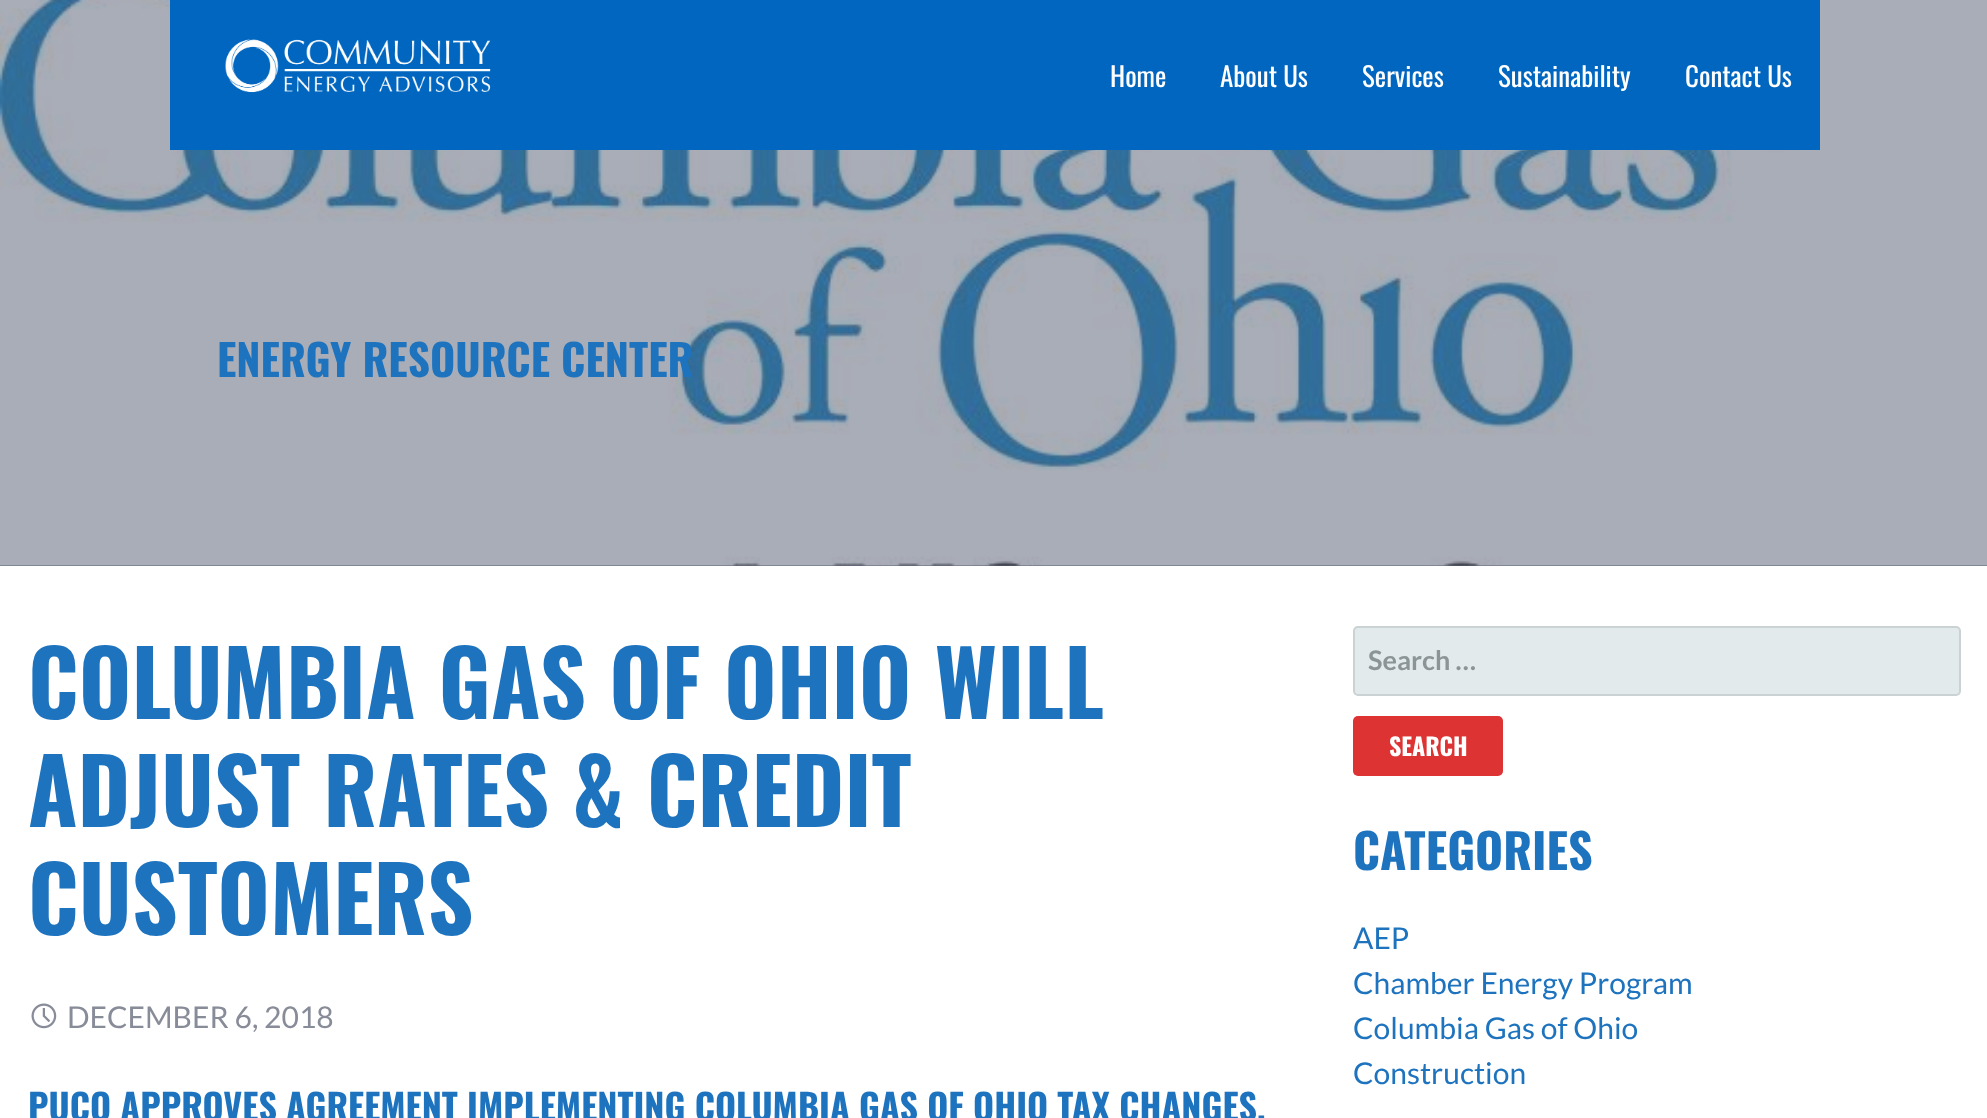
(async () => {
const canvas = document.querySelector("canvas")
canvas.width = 1987
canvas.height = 1118
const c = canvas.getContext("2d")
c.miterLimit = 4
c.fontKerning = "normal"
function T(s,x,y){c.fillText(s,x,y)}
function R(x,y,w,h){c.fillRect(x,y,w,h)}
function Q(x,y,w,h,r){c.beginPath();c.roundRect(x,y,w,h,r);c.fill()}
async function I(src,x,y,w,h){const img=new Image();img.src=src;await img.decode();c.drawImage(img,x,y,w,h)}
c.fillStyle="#fff"
R(0,0,1987,1118)
c.fillStyle="#5a6175"
R(0,565,1987,1)
await I("2.png",0,0,1987,566)
c.fillStyle="#0066bf"
R(170,0,1650,150)
await I("1.png",225,39,266,54)
c.font="27px Oswald"
c.fillStyle="#fff"
T("Home",1110,87)
T("About Us",1220,87)
T("Services",1362,87)
T("Sustainability",1498,87)
T("Contact Us",1685,87)
c.font="bold 43.25px Oswald"
c.fillStyle="#1e73be"
T("ENERGY RESOURCE CENTER",217,377)
c.font="bold 90px Oswald"
T("COLUMBIA GAS OF OHIO WILL",28,719)
T("ADJUST RATES & CREDIT",28,827)
T("CUSTOMERS",28,935)
await I("3.png",31,1003,26,26)
c.font="30px Lato"
c.fillStyle="#888c99"
T("DECEMBER 6, 2018",67,1028)
c.font="bold 36px Oswald"
c.fillStyle="#1e73be"
T("PUCO APPROVES AGREEMENT IMPLEMENTING COLUMBIA GAS OF OHIO TAX CHANGES,",28,1121)
c.fillStyle="#e3eaeb"
Q(1353,626,608,70,5)
c.beginPath()
c.roundRect(1354,627,606,68,4)
c.strokeStyle="#0000001a"
c.lineWidth=2
c.stroke()
c.font="bold 27px Lato"
c.fillStyle="#8b9596"
T("Search …",1368,670)
c.fillStyle="#d33"
Q(1353,716,150,60,5)
c.font="bold 24px Oswald"
c.fillStyle="#fff"
T("SEARCH",1389,756)
c.font="bold 48px Oswald"
c.fillStyle="#1e73be"
T("CATEGORIES",1353,870)
c.font="30px Lato"
T("AEP",1353,949)
T("Chamber Energy Program",1353,994)
T("Columbia Gas of Ohio",1353,1039)
T("Construction",1353,1084)
})()
